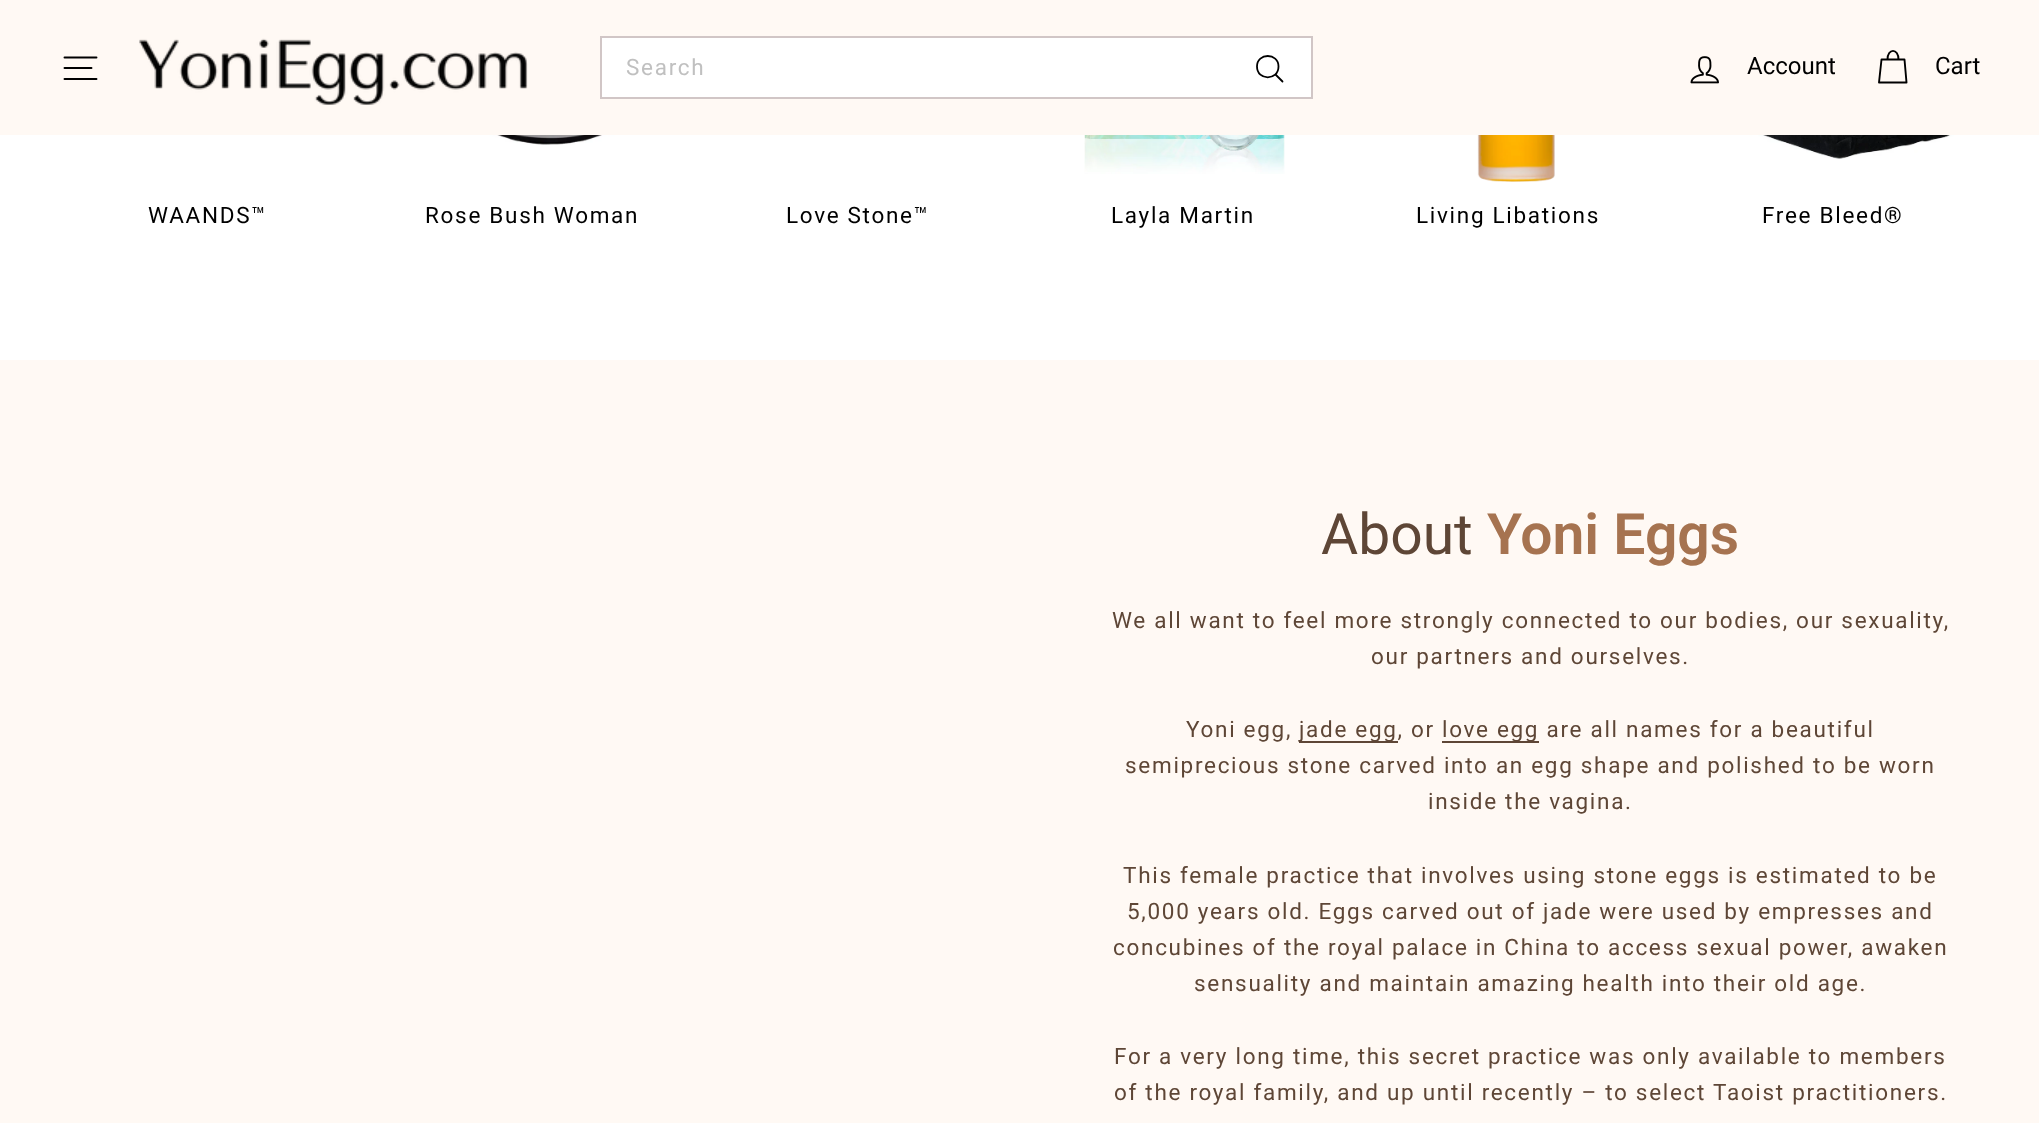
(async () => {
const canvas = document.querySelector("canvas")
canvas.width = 2039
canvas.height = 1123
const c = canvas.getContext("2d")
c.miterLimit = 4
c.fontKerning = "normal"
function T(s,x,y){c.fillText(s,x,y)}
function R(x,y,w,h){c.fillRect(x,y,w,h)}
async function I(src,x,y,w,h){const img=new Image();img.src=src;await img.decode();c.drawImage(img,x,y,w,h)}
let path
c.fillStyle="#fff"
R(0,0,2039,1123)
c.fillStyle="#fff9f4"
R(0,0,2039,135)
path = new Path2D("M64.5 57.5h32m-32 10.5h27m-27 11h32")
c.strokeStyle="#000"
c.lineWidth=1.9
c.lineCap="round"
c.lineJoin="round"
c.stroke(path)
await I("1.png",139,38,389,67)
c.fillStyle="#fff"
c.beginPath()
c.rect(601,37,711,61)
c.fill()
c.strokeStyle="#d1c6c6"
c.lineWidth=2
c.lineJoin="miter"
c.stroke()
c.letterSpacing="1.7px"
c.font="22.5px Roboto"
c.fillStyle="#c0c0c0"
T("Search",626,75)
path = new Path2D("M1278.5 66.5c0 14.5-21.5 14.5-21.5 0c0-14 21.5-14 21.5 0zm4 15l-7-7")
c.strokeStyle="#000"
c.lineWidth=1.8
c.lineJoin="round"
c.stroke(path)
await I("2.png",1690,56,29,28)
c.letterSpacing="0px"
c.font="24px Roboto"
c.fillStyle="#000"
T("Account",1747,74)
path = new Path2D("M1887.5 59.5c0-11.5 11-11.5 11 0m-17 0h23l2 23h-27.5z")
c.lineWidth=1.9
c.stroke(path)
T("Cart",1935,74)
c.letterSpacing="1.7px"
c.font="22.5px Roboto"
T("WAANDS™",148,223)
await I("3.png",390,135,241,10)
T("Rose Bush Woman",425,223)
T("Love Stone™",786,223)
await I("4.png",1084,135,201,39)
T("Layla Martin",1111,223)
await I("5.png",1477,135,78,47)
T("Living Libations",1416,223)
await I("6.png",1714,135,243,24)
T("Free Bleed®",1762,223)
c.fillStyle="#fff9f4"
R(0,360,2039,763)
c.letterSpacing="0px"
c.font="57px Roboto"
c.fillStyle="#5e4636"
T("About",1321,554)
c.font="600 57px Roboto"
c.fillStyle="#a67350"
T("Yoni Eggs",1487,554)
c.letterSpacing="1.7px"
c.font="22.5px Roboto"
c.fillStyle="#5e4636"
T("We all want to feel more strongly connected to our bodies, our sexuality,",1112,628)
T("our partners and ourselves.",1371,664)
T("Yoni egg,",1186,737)
R(1299,741,99,2)
T("jade egg, or",1299,737)
R(1442,741,97,2)
T("love egg are all names for a beautiful",1442,737)
T("semiprecious stone carved into an egg shape and polished to be worn",1125,773)
T("inside the vagina.",1428,809)
T("This female practice that involves using stone eggs is estimated to be",1123,883)
T("5,000 years old. Eggs carved out of jade were used by empresses and",1127,919)
T("concubines of the royal palace in China to access sexual power, awaken",1113,955)
T("sensuality and maintain amazing health into their old age.",1194,991)
T("For a very long time, this secret practice was only available to members",1114,1064)
T("of the royal family, and up until recently – to select Taoist practitioners.",1114,1100)
})()
